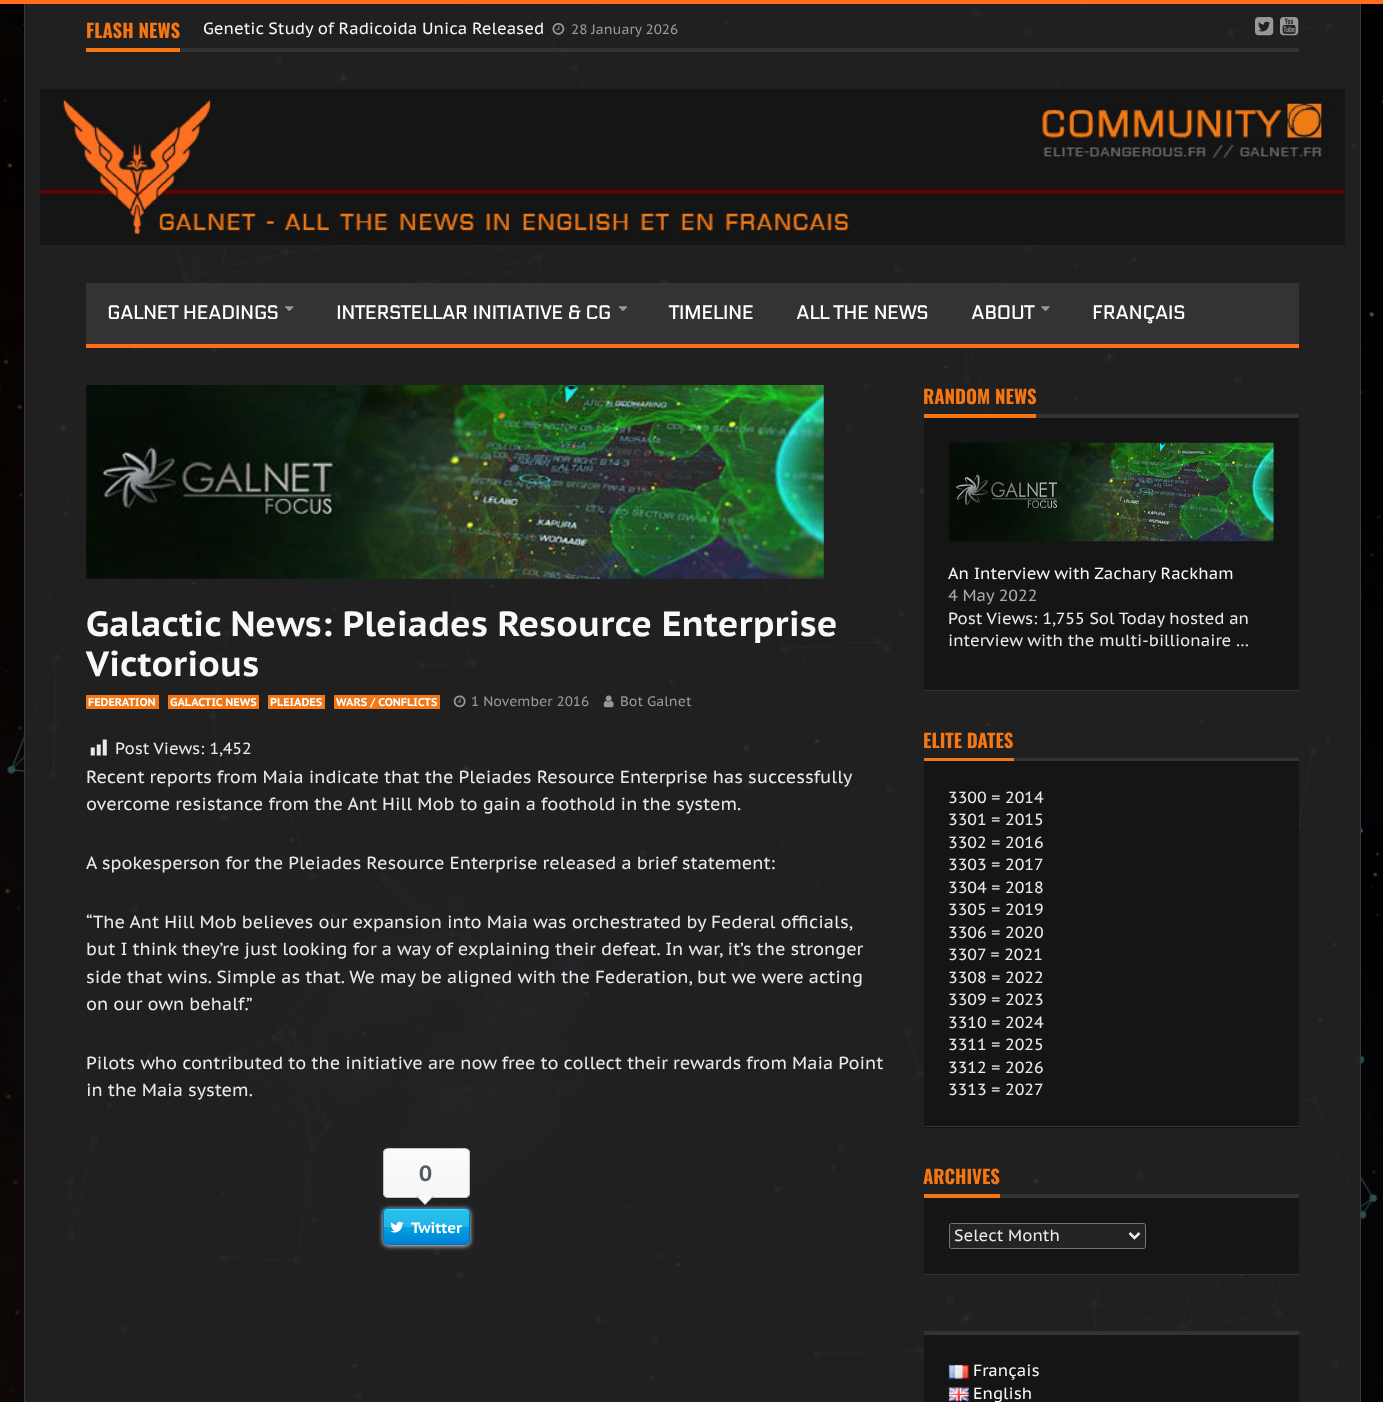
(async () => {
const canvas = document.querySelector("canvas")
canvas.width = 1383
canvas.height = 1402
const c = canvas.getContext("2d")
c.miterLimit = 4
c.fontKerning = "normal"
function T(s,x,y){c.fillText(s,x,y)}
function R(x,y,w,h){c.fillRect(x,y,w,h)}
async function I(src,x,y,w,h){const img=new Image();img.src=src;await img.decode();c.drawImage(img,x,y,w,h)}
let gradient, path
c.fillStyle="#fff"
R(0,0,1383,1402)
await I("1.png",0,4,1383,1398)
await I("2.png",7,8,1371,1392)
c.fillStyle="#3d3d3de6"
R(1360,0,1,1402)
R(24,0,1,1402)
c.fillStyle="#ff6d1d"
R(0,0,1383,4)
c.fillStyle="#333"
R(180,48,1119,4)
c.fillStyle="#f57713"
R(86,48,94,4)
c.font="bold 18.75px Oswald"
T("FLASH NEWS",86,38)
c.font="16.25px PT Sans Caption"
c.fillStyle="#f8f8f8"
T("Genetic Study of Radicoida Unica Released",203,34)
await I("3.png",552,23,13,12)
c.font="13.75px PT Sans Caption"
c.fillStyle="#999"
T("28 January 2026",571,34)
await I("4.png",1255,17,19,19)
await I("5.png",1280,17,19,19)
await I("6.png",40,88,1305,157)
c.fillStyle="#ff6d1d"
path = new Path2D("M86 286v62h1213v-62v58h-1213z")
c.fill(path)
c.fillStyle="#333"
R(86,283,1213,61)
c.font="bold 18.75px Electrolize"
c.fillStyle="#fff"
T("GALNET HEADINGS",107,319)
await I("7.png",285,306,9,5)
T("INTERSTELLAR INITIATIVE & CG",336,319)
await I("8.png",618,306,10,5)
T("TIMELINE",669,319)
T("ALL THE NEWS",796,319)
T("ABOUT",971,319)
await I("9.png",1041,306,9,5)
T("FRANÇAIS",1092,319)
await I("10.png",86,385,738,194)
c.font="bold 35px PT Sans Caption"
c.fillStyle="#f8f8f8"
T("Galactic News: Pleiades Resource Enterprise",86,636)
T("Victorious",86,676)
c.fillStyle="#f57713"
R(86,695,73,14)
c.font="bold 11.25px PT Sans Caption"
c.fillStyle="#fff"
T("FEDERATION",88,706)
c.fillStyle="#f57713"
R(168,695,91,14)
c.fillStyle="#fff"
T("GALACTIC NEWS",170,706)
c.fillStyle="#f57713"
R(268,695,57,14)
c.fillStyle="#fff"
T("PLEIADES",270,706)
c.fillStyle="#f57713"
R(334,695,106,14)
c.fillStyle="#fff"
T("WARS / CONFLICTS",336,706)
await I("11.png",453,695,13,13)
c.font="13.75px PT Sans Caption"
c.fillStyle="#999"
T("1 November 2016",471,706)
await I("12.png",603,695,11,13)
T("Bot Galnet",620,706)
await I("13.png",90,739,17,17)
c.font="16.25px PT Sans Caption"
c.fillStyle="#eaeaea"
T("Post Views: 1,452",115,754)
c.font="17.5px PT Sans Caption"
T("Recent reports from Maia indicate that the Pleiades Resource Enterprise has successfully",86,783)
T("overcome resistance from the Ant Hill Mob to gain a foothold in the system.",86,810)
T("A spokesperson for the Pleiades Resource Enterprise released a brief statement:",86,869)
T("“The Ant Hill Mob believes our expansion into Maia was orchestrated by Federal officials,",86,928)
T("but I think they’re just looking for a way of explaining their defeat. In war, it’s the stronger",86,955)
T("side that wins. Simple as that. We may be aligned with the Federation, but we were acting",86,983)
T("on our own behalf.”",86,1010)
T("Pilots who contributed to the initiative are now free to collect their rewards from Maia Point",86,1069)
T("in the Maia system.",86,1096)
c.save()
c.beginPath()
c.roundRect(383,1148,87,50,5)
c.clip()
gradient = c.createLinearGradient(426,1149,426,1196)
gradient.addColorStop(0,"#fbfbfb")
gradient.addColorStop(1,"#f6f6f6")
c.fillStyle = gradient
R(383,1149,87,47)
gradient = c.createLinearGradient(426,1196,426,1244)
gradient.addColorStop(0,"#fbfbfb")
gradient.addColorStop(1,"#f6f6f6")
c.fillStyle = gradient
R(383,1196,87,2)
c.restore()
c.beginPath()
c.roundRect(383.5,1148.5,86,49,4.5)
c.strokeStyle="#b2c6cc"
c.stroke()
c.font="bold 22px PT Sans Caption"
c.fillStyle="#525b67"
T("0",419,1181)
c.fillStyle="#b2c6cc"
path = new Path2D("M416 1196h18l-9 9z")
c.fill(path)
c.fillStyle="#fbfbfb"
path = new Path2D("M417.5 1196h15l-7.5 8z")
c.fill(path)
c.fillStyle="#ddd"
c.filter="blur(2.5px)"
c.beginPath()
c.roundRect(383,1209,87,37,5)
c.fill()
c.filter="none"
c.save()
c.beginPath()
c.roundRect(383,1208,87,37,5)
c.clip()
gradient = c.createLinearGradient(426,1209,426,1244)
gradient.addColorStop(0,"#26c3eb")
gradient.addColorStop(.5,"#26b3e6")
gradient.addColorStop(.51,"#00a2e1")
gradient.addColorStop(1,"#0080d6")
c.fillStyle = gradient
R(383,1209,87,35)
c.restore()
c.fillStyle="#5cd3f1"
path = new Path2D("M388 1210h77c2 0 4 2 4 4c0-8-12-5-17-5h-51c-5 0-17-3-17 5c0-2 1-4 4-4z")
c.fill(path)
c.beginPath()
c.roundRect(383.5,1208.5,86,36,4.5)
c.strokeStyle="#0075c5"
c.stroke()
await I("14.png",390,1221,14,12)
c.font="bold 15px PT Sans Caption"
c.fillStyle="#fff"
T("Twitter",411,1233)
c.fillStyle="#333"
R(1036,414,263,4)
c.fillStyle="#f57713"
R(924,414,112,4)
c.font="bold 18.75px Oswald"
T("RANDOM NEWS",923,404)
c.fillStyle="#151515"
R(924,418,375,272)
c.fillStyle="#333"
R(924,690,375,1)
await I("15.png",949,442,325,100)
c.font="16.25px PT Sans Caption"
c.fillStyle="#f8f8f8"
T("An Interview with Zachary Rackham",948,579)
c.fillStyle="#aaa"
T("4 May 2022",948,601)
c.fillStyle="#eaeaea"
T("Post Views: 1,755 Sol Today hosted an",948,624)
T("interview with the multi-billionaire …",948,646)
c.fillStyle="#333"
R(1014,758,285,3)
c.fillStyle="#f57713"
R(924,758,90,3)
c.font="bold 18.75px Oswald"
T("ELITE DATES",923,748)
c.fillStyle="#151515"
R(924,761,375,367)
c.fillStyle="#333"
R(924,1126,375,1)
c.font="16.25px PT Sans Caption"
c.fillStyle="#eaeaea"
T("3300 = 2014",948,803)
T("3301 = 2015",948,825)
T("3302 = 2016",948,848)
T("3303 = 2017",948,870)
T("3304 = 2018",948,893)
T("3305 = 2019",948,915)
T("3306 = 2020",948,938)
T("3307 = 2021",948,960)
T("3308 = 2022",948,983)
T("3309 = 2023",948,1005)
T("3310 = 2024",948,1028)
T("3311 = 2025",948,1050)
T("3312 = 2026",948,1073)
T("3313 = 2027",948,1095)
c.fillStyle="#333"
R(1000,1194,299,4)
c.fillStyle="#f57713"
R(924,1194,76,4)
c.font="bold 18.75px Oswald"
T("ARCHIVES",923,1184)
c.fillStyle="#151515"
R(924,1198,375,76)
c.fillStyle="#333"
R(924,1274,375,1)
c.fillStyle="#232322"
c.beginPath()
c.roundRect(949.5,1223.5,196,25,2)
c.fill()
c.strokeStyle="#767676"
c.stroke()
path = new Path2D("M1129.5 1233l5 5l5-5")
c.strokeStyle="#eaeaea"
c.lineWidth=2.5
c.stroke(path)
c.font="16.25px PT Sans Caption"
c.fillStyle="#eaeaea"
T("Select Month",954,1241)
c.fillStyle="#333"
R(924,1331,375,4)
c.fillStyle="#151515"
R(924,1335,375,67)
await I("16.png",948,1365,21,14)
c.fillStyle="#f8f8f8"
T("Français",973,1376)
await I("17.png",948,1387,21,15)
T("English",973,1399)
})()
